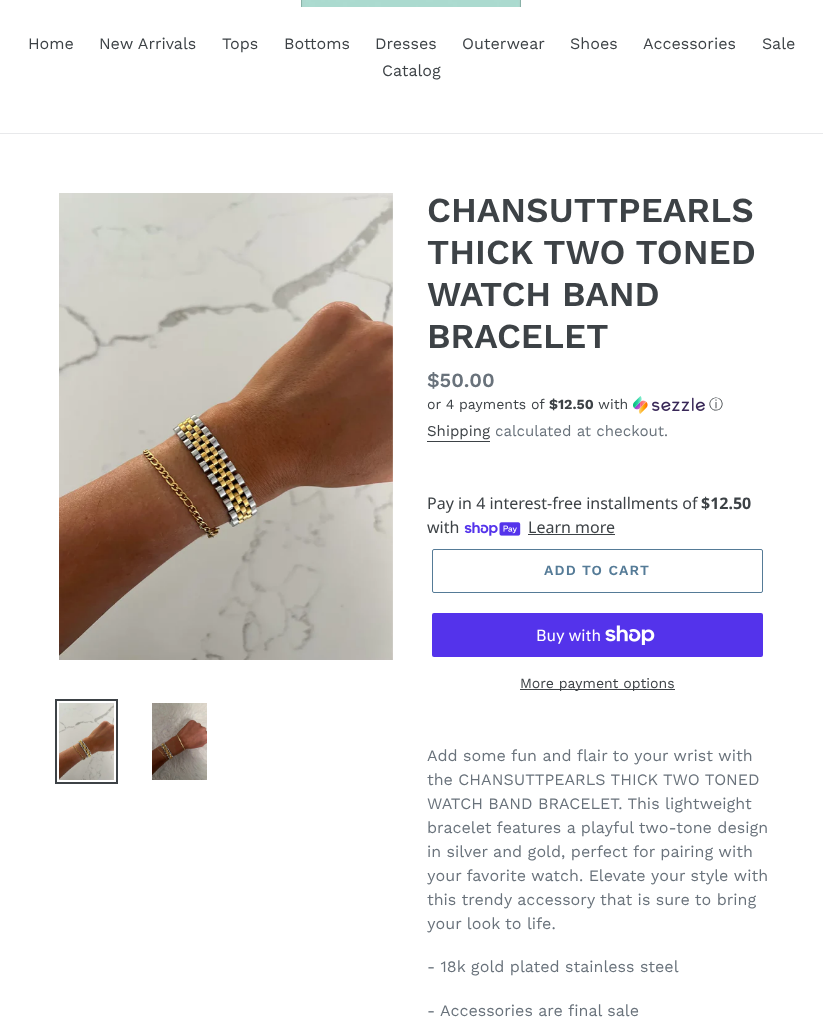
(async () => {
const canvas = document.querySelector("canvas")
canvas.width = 823
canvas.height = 1027
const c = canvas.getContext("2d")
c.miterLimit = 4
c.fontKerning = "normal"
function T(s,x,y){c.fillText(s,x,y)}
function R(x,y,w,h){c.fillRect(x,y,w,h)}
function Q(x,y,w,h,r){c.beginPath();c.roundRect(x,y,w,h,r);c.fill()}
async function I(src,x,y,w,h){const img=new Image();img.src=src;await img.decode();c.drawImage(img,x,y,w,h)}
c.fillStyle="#fff"
R(0,0,823,1027)
await I("1.png",301,0,220,7)
c.fillStyle="#e8e9eb"
R(0,133,823,1)
c.font="16px Work Sans"
c.fillStyle="#3d4246"
T("Home",28,49)
T("New Arrivals",99,49)
T("Tops",222,49)
T("Bottoms",284,49)
T("Dresses",375,49)
T("Outerwear",462,49)
T("Shoes",570,49)
T("Accessories",643,49)
T("Sale",762,49)
T("Catalog",382,76)
await I("2.png",59,193,334,467)
c.strokeStyle="#3d4246"
c.lineWidth=2
c.strokeRect(56,700,61,83)
await I("3.png",59,703,55,77)
await I("4.png",152,703,55,77)
c.font="600 35px Work Sans"
T("CHANSUTTPEARLS",427,222)
T("THICK TWO TONED",427,264)
T("WATCH BAND",427,306)
T("BRACELET",427,348)
c.font="600 20px Work Sans"
c.fillStyle="#69727b"
T("$50.00",427,387)
c.font="14px Work Sans"
c.fillStyle="#3d4246"
T("or 4 payments of",427,409)
c.font="bold 14px Work Sans"
T("$12.50",549,409)
c.font="14px Work Sans"
T("with",598,409)
await I("5.png",633,396,72,18)
c.font="500 14px WenQuanYi Zen Hei"
T("ⓘ",709,409)
c.font="15px Work Sans"
T("Shipping",427,436)
R(427,441,63,1)
c.fillStyle="#69727b"
T("calculated at checkout.",495,436)
c.font="16px Noto Sans"
c.fillStyle="#3d4246"
T("Pay in 4 interest-free installments of",427,509)
c.font="bold 16px Noto Sans"
T("$12.50",701,509)
c.font="16px Noto Sans"
T("with",427,533)
await I("6.png",464,522,57,14)
T("Learn more",528,533)
R(528,534,87,1)
c.beginPath()
c.roundRect(432.5,549.5,330,43,1.5)
c.strokeStyle="#557b97"
c.lineWidth=1
c.stroke()
c.letterSpacing="1.1px"
c.font="600 14px Work Sans"
c.fillStyle="#557b97"
T("ADD TO CART",544,575)
c.fillStyle="#5433eb"
Q(432,613,331,44,2)
c.letterSpacing="0px"
c.font="16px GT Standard"
c.fillStyle="#fff"
T("Buy with",536,641)
await I("7.png",605,625,50,20)
c.fillStyle="#3d4246"
R(520,689,155,1)
c.font="14px Work Sans"
T("More payment options",520,688)
c.font="16px Work Sans"
c.fillStyle="#69727b"
T("Add some fun and flair to your wrist with",427,761)
T("the CHANSUTTPEARLS THICK TWO TONED",427,785)
T("WATCH BAND BRACELET. This lightweight",427,809)
T("bracelet features a playful two-tone design",427,833)
T("in silver and gold, perfect for pairing with",427,857)
T("your favorite watch. Elevate your style with",427,881)
T("this trendy accessory that is sure to bring",427,905)
T("your look to life.",427,929)
T("- 18k gold plated stainless steel",427,972)
T("- Accessories are final sale",427,1016)
})()
